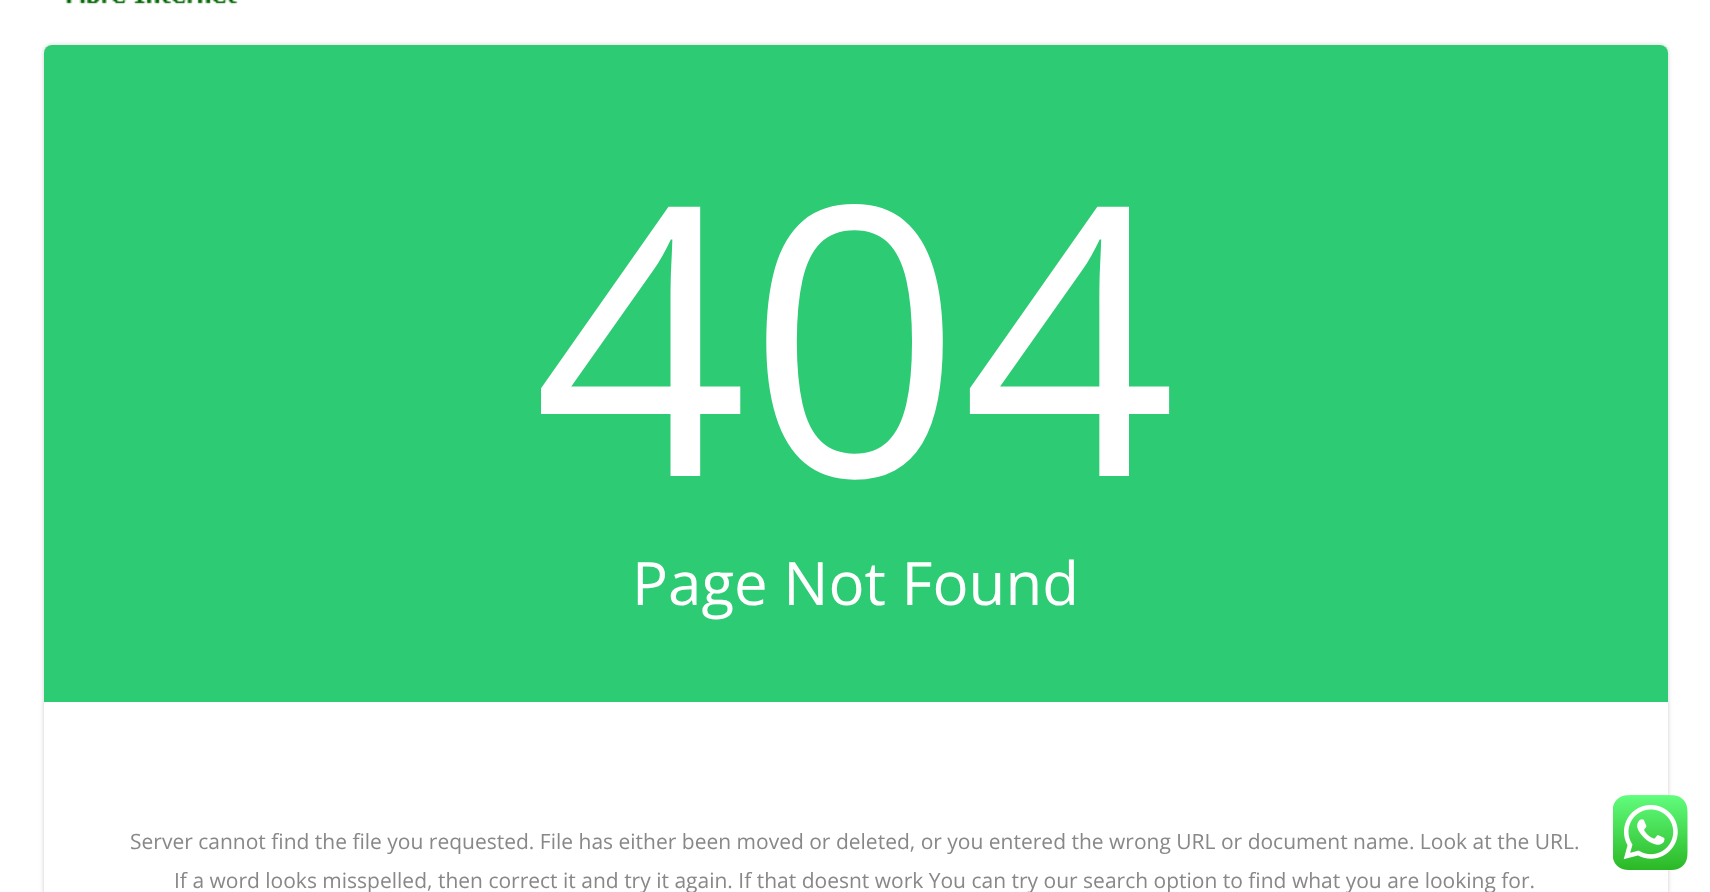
(async () => {
const canvas = document.querySelector("canvas")
canvas.width = 1710
canvas.height = 892
const c = canvas.getContext("2d")
c.miterLimit = 4
c.fontKerning = "normal"
function T(s,x,y){c.fillText(s,x,y)}
function R(x,y,w,h){c.fillRect(x,y,w,h)}
async function I(src,x,y,w,h){const img=new Image();img.src=src;await img.decode();c.drawImage(img,x,y,w,h)}
let path
c.fillStyle="#fff"
R(0,0,1710,892)
await I("1.png",65,0,173,4)
c.fillStyle="#00000033"
c.filter="blur(2px)"
c.beginPath()
c.roundRect(44,45,1624,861,8)
c.fill()
c.filter="none"
c.fillStyle="#fff"
path = new Path2D("M52 45h1608c4.5 0 8 3.5 8 8v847h-1624v-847c0-4.5 3.5-8 8-8z")
c.fill(path)
c.fillStyle="#2dcb73"
c.beginPath()
c.roundRect(44,45,1624,657,[8,8,0,0])
c.fill()
c.font="375px Open Sans"
c.fillStyle="#fff"
T("404",533,476)
c.font="60px Open Sans"
T("Page Not Found",632,605)
c.font="21px Open Sans"
c.fillStyle="#888"
T("Server cannot find the file you requested. File has either been moved or deleted, or you entered the wrong URL or document name. Look at the URL.",130,849)
T("If a word looks misspelled, then correct it and try it again. If that doesnt work You can try our search option to find what you are looking for.",174,888)
await I("2.png",1613,795,75,75)
})()
